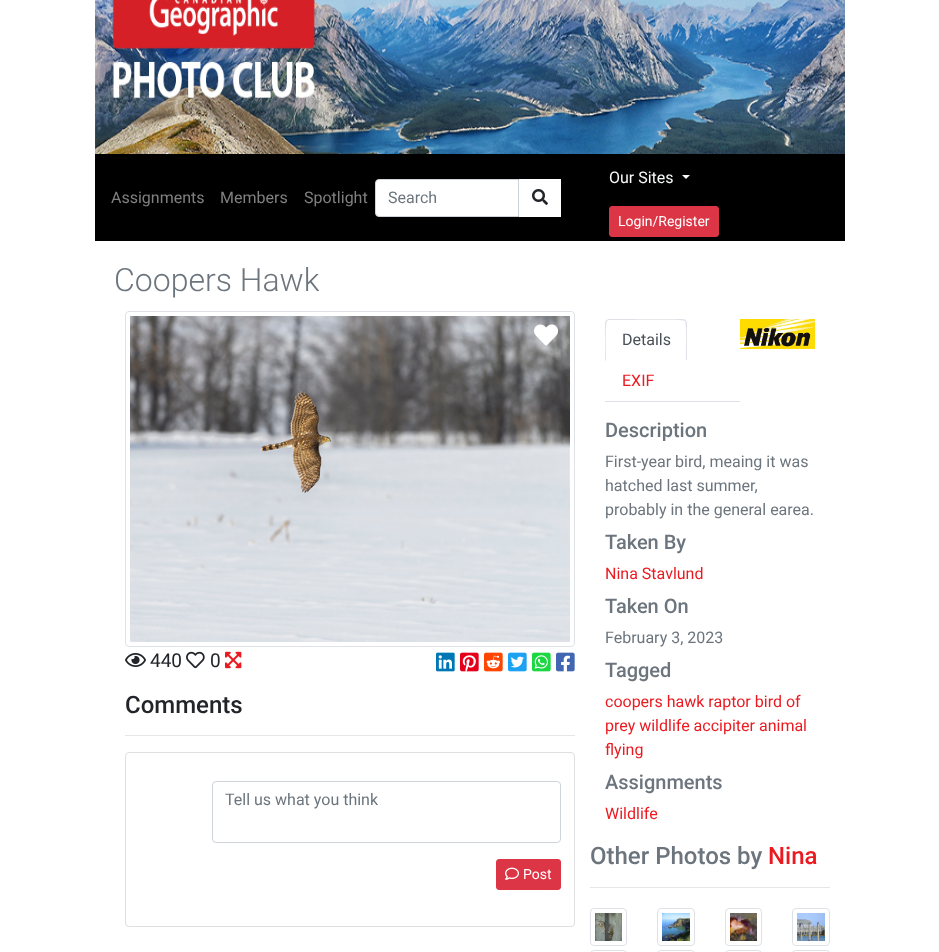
(async () => {
const canvas = document.querySelector("canvas")
canvas.width = 939
canvas.height = 952
const c = canvas.getContext("2d")
c.miterLimit = 4
c.fontKerning = "normal"
function T(s,x,y){c.fillText(s,x,y)}
function R(x,y,w,h){c.fillRect(x,y,w,h)}
async function I(src,x,y,w,h){const img=new Image();img.src=src;await img.decode();c.drawImage(img,x,y,w,h)}
let path
c.fillStyle="#fff"
R(0,0,939,952)
await I("1.png",95,0,750,154)
c.fillStyle="#000"
R(95,154,750,87)
c.font="16px Roboto"
c.fillStyle="#808080"
T("Assignments",111,203)
T("Members",220,203)
T("Spotlight",304,203)
c.fillStyle="#fff"
c.beginPath()
c.roundRect(375.5,179.5,143,37,[3.5,0,0,3.5])
c.fill()
c.strokeStyle="#ced4da"
c.stroke()
c.fillStyle="#6c757d"
T("Search",388,203)
c.fillStyle="#fff"
R(519,179,42,38)
await I("2.png",532,189,16,16)
c.fillStyle="#f8f9fa"
T("Our Sites",609,183)
path = new Path2D("M682 175h8l-4 4z")
c.fill(path)
c.fillStyle="#dc3545"
c.beginPath()
c.roundRect(609.5,206.5,109,30,2.5)
c.fill()
c.strokeStyle="#dc3545"
c.stroke()
c.font="14px Roboto"
c.fillStyle="#fff"
T("Login/Register",618,226)
c.font="300 32px Roboto"
c.fillStyle="#6c757d"
T("Coopers Hawk",114,291)
c.beginPath()
c.roundRect(125.5,311.5,449,335,3.5)
c.strokeStyle="#dee2e6"
c.stroke()
await I("3.png",130,316,440,326)
await I("4.png",534,324,24,22)
await I("5.png",125,653,21,14)
c.font="19px Roboto"
c.fillStyle="#212529"
T("440",150,667)
await I("6.png",186,651,19,18)
T("0",210,667)
await I("7.png",225,651,17,18)
await I("8.png",436,652,19,20)
await I("9.png",460,652,19,20)
await I("10.png",484,652,19,20)
await I("11.png",508,652,19,20)
await I("12.png",532,652,19,20)
await I("13.png",556,652,19,20)
c.font="500 24px Roboto"
T("Comments",125,713)
c.fillStyle="#e6e6e6"
R(125,735,450,1)
c.beginPath()
c.roundRect(125.5,752.5,449,174,3.5)
c.strokeStyle="#dfdfdf"
c.stroke()
c.beginPath()
c.roundRect(212.5,781.5,348,61,3.5)
c.strokeStyle="#ced4da"
c.stroke()
c.font="16px Roboto"
c.fillStyle="#6c757d"
T("Tell us what you think",225,805)
c.fillStyle="#dc3545"
c.beginPath()
c.roundRect(496.5,859.5,64,30,2.5)
c.fill()
c.strokeStyle="#dc3545"
c.stroke()
await I("14.png",505,867,14,13)
c.font="14px Roboto"
c.fillStyle="#fff"
T("Post",523,879)
c.fillStyle="#dee2e6"
R(605,401,135,1)
path = new Path2D("M609 319l-3 1l1 1l2-1h12c7 0 62-1 64 1l1-1l-3-1z")
c.fill(path)
path = new Path2D("M687 361v-38c0-1-1-2-1-3l-1 1c2 2 1 34 1 39z")
c.fill(path)
c.fillStyle="#fff"
path = new Path2D("M687 361l-1-1h-80l-1 1z")
c.fill(path)
c.fillStyle="#dee2e6"
path = new Path2D("M605 361l1-1c0-5-1-37 1-39l-1-1l-1 3z")
c.fill(path)
c.font="16px Roboto"
c.fillStyle="#495057"
T("Details",622,345)
c.fillStyle="#eb1a21"
T("EXIF",622,386)
await I("15.png",740,319,75,30)
c.font="500 20px Roboto"
c.fillStyle="#6c757d"
T("Description",605,437)
c.font="16px Roboto"
T("First-year bird, meaing it was",605,467)
T("hatched last summer,",605,491)
T("probably in the general earea.",605,515)
c.font="500 20px Roboto"
T("Taken By",605,549)
c.font="16px Roboto"
c.fillStyle="#eb1a21"
T("Nina Stavlund",605,579)
c.font="500 20px Roboto"
c.fillStyle="#6c757d"
T("Taken On",605,613)
c.font="16px Roboto"
T("February 3, 2023",605,643)
c.font="500 20px Roboto"
T("Tagged",605,677)
c.font="16px Roboto"
c.fillStyle="#eb1a21"
T("coopers hawk raptor bird of",605,707)
T("prey wildlife accipiter animal",605,731)
T("flying",605,755)
c.font="500 20px Roboto"
c.fillStyle="#6c757d"
T("Assignments",605,789)
c.font="16px Roboto"
c.fillStyle="#eb1a21"
T("Wildlife",605,819)
c.font="500 24px Roboto"
c.fillStyle="#6c757d"
T("Other Photos by",590,864)
c.fillStyle="#eb1a21"
T("Nina",768,864)
c.fillStyle="#e6e6e6"
R(590,887,240,1)
c.beginPath()
c.roundRect(590.5,908.5,36,37,3.5)
c.strokeStyle="#dee2e6"
c.stroke()
await I("16.png",595,913,27,28)
c.beginPath()
c.roundRect(657.5,908.5,37,37,3.5)
c.stroke()
await I("17.png",662,913,28,28)
c.beginPath()
c.roundRect(725.5,908.5,36,37,3.5)
c.stroke()
await I("18.png",730,913,27,28)
c.beginPath()
c.roundRect(792.5,908.5,37,37,3.5)
c.stroke()
await I("19.png",797,913,28,28)
c.beginPath()
c.roundRect(590.5,950.5,36,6,3.5)
c.stroke()
c.beginPath()
c.roundRect(657.5,950.5,37,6,3.5)
c.stroke()
c.beginPath()
c.roundRect(725.5,950.5,36,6,3.5)
c.stroke()
c.beginPath()
c.roundRect(792.5,950.5,37,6,3.5)
c.stroke()
})()
